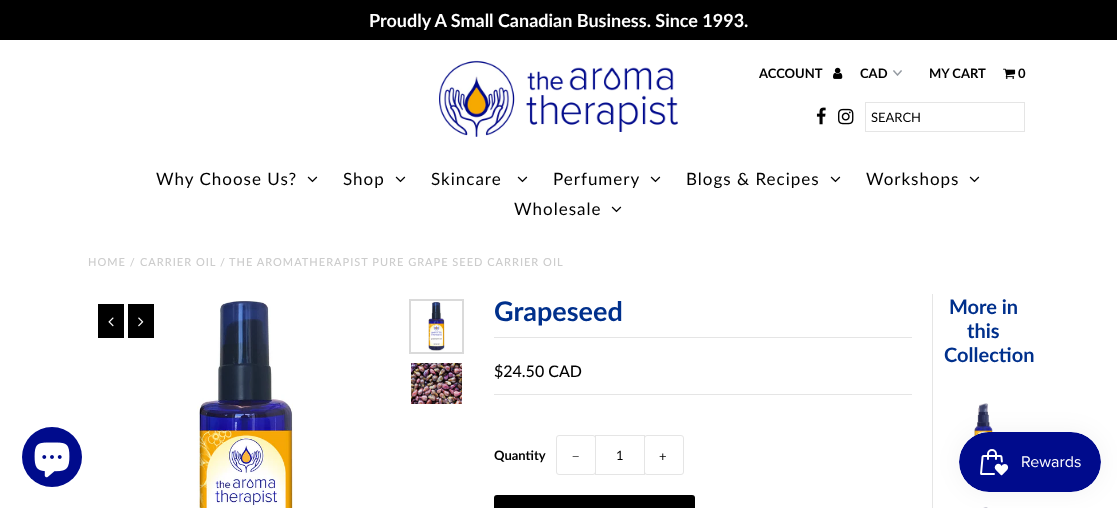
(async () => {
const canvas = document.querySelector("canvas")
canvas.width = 1117
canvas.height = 508
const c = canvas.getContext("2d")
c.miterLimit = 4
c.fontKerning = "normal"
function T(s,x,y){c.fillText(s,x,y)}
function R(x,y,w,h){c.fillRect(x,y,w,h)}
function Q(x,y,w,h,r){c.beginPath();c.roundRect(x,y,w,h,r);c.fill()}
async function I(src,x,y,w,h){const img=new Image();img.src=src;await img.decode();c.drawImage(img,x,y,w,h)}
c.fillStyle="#fff"
R(0,0,1117,508)
c.fillStyle="#000"
R(0,0,1117,40)
c.font="bold 18px Lato"
c.fillStyle="#fff"
T("Proudly A Small Canadian Business. Since 1993.",369,27)
await I("1.png",439,60,239,77)
c.font="bold 13px Lato"
c.fillStyle="#000"
T("ACCOUNT",759,78)
await I("2.png",833,67,10,12)
await I("3.png",893,70,9,6)
T("CAD",860,78)
T("MY CART",929,78)
await I("4.png",1003,68,13,11)
T("0",1018,78)
await I("5.png",816,107,10,18)
await I("6.png",838,108,16,17)
c.strokeStyle="#e5e5e5"
c.strokeRect(865.5,102.5,159,29)
c.font="13px Lato"
T("SEARCH",871,122)
c.letterSpacing="1px"
c.font="17px Lato"
T("Why Choose Us?",156,185)
await I("7.png",307,176,11,7)
T("Shop",343,185)
await I("7.png",395,176,11,7)
T("Skincare",431,185)
await I("7.png",517,176,11,7)
T("Perfumery",553,185)
await I("7.png",650,176,11,7)
T("Blogs & Recipes",686,185)
await I("7.png",830,176,11,7)
T("Workshops",866,185)
await I("7.png",969,176,11,7)
T("Wholesale",514,215)
await I("7.png",611,206,11,7)
c.font="500 11px Lato"
c.fillStyle="#ccc"
T("HOME /",88,266)
T("CARRIER OIL",140,266)
T("/",220,266)
T("THE AROMATHERAPIST PURE GRAPE SEED CARRIER OIL",229,266)
c.fillStyle="#000"
R(98,304,26,34)
await I("8.png",108,317,6,10)
R(128,304,26,34)
await I("9.png",138,317,6,10)
await I("10.png",197,301,96,207)
c.strokeStyle="#dadada"
c.lineWidth=2
c.strokeRect(410,300,53,53)
await I("11.png",428,302,17,49)
await I("12.png",411,363,51,41)
c.fillStyle="#e5e5e5"
R(932,294,1,214)
c.letterSpacing="0px"
c.font="bold 27px Lato"
c.fillStyle="#00308c"
T("Grapeseed",494,321)
c.fillStyle="#e5e5e5"
R(494,337,418,1)
R(494,394,418,1)
c.font="500 16px Lato"
c.fillStyle="#000"
T("$24.50 CAD",494,377)
c.font="bold 13px Lato"
T("Quantity",494,460)
c.beginPath()
c.roundRect(556.5,435.5,39,39,2.5)
c.strokeStyle="#e5e5e5"
c.lineWidth=1
c.stroke()
c.letterSpacing="1px"
c.font="13px Liberation Serif"
T("−",572,461)
c.strokeRect(595.5,435.5,49,39)
c.letterSpacing="0px"
c.font="13px Lato"
T("1",616,460)
c.beginPath()
c.roundRect(644.5,435.5,39,39,2.5)
c.stroke()
c.letterSpacing="1px"
T("+",659,461)
Q(494,495,201,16,3)
c.letterSpacing="0px"
c.font="bold 20px Lato"
c.fillStyle="#00308c"
T("More in",949,314)
T("this",967,338)
T("Collection",944,362)
await I("13.png",974,403,19,34)
await I("14.png",983,507,5,1)
c.fillStyle="#000b8c"
c.beginPath()
c.arc(52,457,30,0,7)
c.fill()
await I("15.png",34,442,36,36)
c.fillStyle="#0000000d"
c.filter="blur(12.5px)"
c.beginPath()
c.roundRect(959,432,142,60,30)
c.fill()
c.filter="none"
await I("16.png",959,432,142,60)
})()
